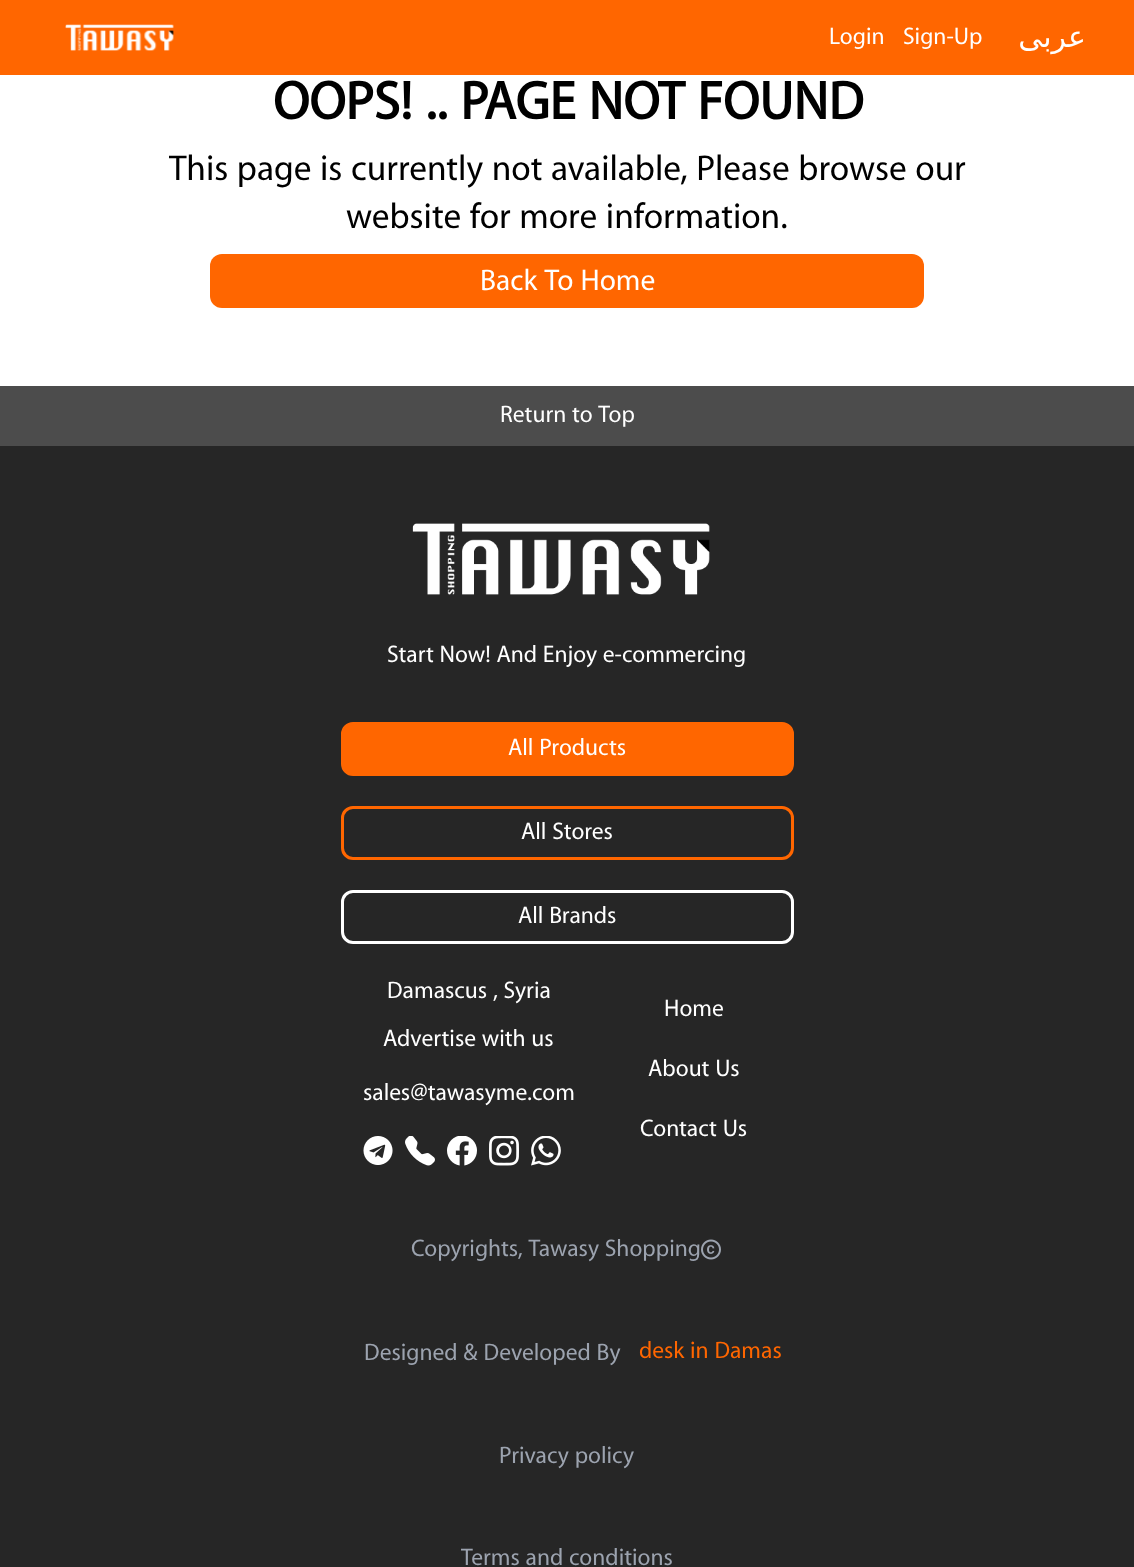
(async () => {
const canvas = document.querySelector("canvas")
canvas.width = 1134
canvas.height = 1567
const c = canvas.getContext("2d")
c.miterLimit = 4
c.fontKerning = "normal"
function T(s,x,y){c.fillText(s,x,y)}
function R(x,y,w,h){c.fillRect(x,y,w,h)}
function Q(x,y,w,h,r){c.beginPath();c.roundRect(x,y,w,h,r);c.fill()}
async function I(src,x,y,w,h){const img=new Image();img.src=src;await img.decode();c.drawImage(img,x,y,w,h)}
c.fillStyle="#fff"
R(0,0,1134,1567)
c.fillStyle="#f60"
R(0,0,1134,75)
await I("1.png",65,24,109,27)
c.font="500 24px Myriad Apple"
c.fillStyle="#fff"
T("Login",829,44)
T("Sign-Up",903,44)
c.direction="rtl"
c.font="30px DejaVu Sans"
T("عربى",1086,47)
c.direction="ltr"
c.font="bold 54px Myriad Apple"
c.fillStyle="#000"
T("OOPS! .. PAGE NOT FOUND",273,119)
c.font="500 36px Myriad Apple"
T("This page is currently not available, Please browse our",169,180)
T("website for more information.",346,228)
c.fillStyle="#f60"
Q(210,254,714,54,12)
c.font="500 30px Myriad Apple"
c.fillStyle="#fff"
T("Back To Home",480,290)
c.fillStyle="#4c4c4c"
R(0,386,1134,60)
c.font="500 24px Myriad Apple"
c.fillStyle="#fff"
T("Return to Top",500,422)
c.fillStyle="#262626"
R(0,446,1134,1121)
await I("2.png",412,523,298,72)
c.fillStyle="#fff"
T("Start Now! And Enjoy e-commercing",387,662)
c.fillStyle="#f60"
c.beginPath()
c.roundRect(342.5,723.5,450,51,10.5)
c.fill()
c.strokeStyle="#f60"
c.lineWidth=3
c.stroke()
c.fillStyle="#fff"
T("All Products",508,755)
c.beginPath()
c.roundRect(342.5,807.5,450,51,10.5)
c.stroke()
T("All Stores",521,839)
c.beginPath()
c.roundRect(342.5,891.5,450,51,10.5)
c.strokeStyle="#fff"
c.stroke()
T("All Brands",518,923)
T("Damascus , Syria",387,998)
T("Advertise with us",383,1046)
T("sales@tawasyme.com",363,1100)
await I("3.png",363,1136,30,29)
await I("4.png",405,1136,30,30)
await I("5.png",447,1136,30,30)
await I("6.png",489,1136,30,30)
await I("7.png",531,1136,30,30)
T("Home",664,1016)
T("About Us",648,1076)
T("Contact Us",640,1136)
c.fillStyle="#9ca3af"
T("Copyrights, Tawasy Shopping",411,1256)
await I("8.png",701,1239,20,21)
T("Designed & Developed By",364,1360)
c.fillStyle="#f60"
T("desk in Damas",639,1358)
c.fillStyle="#9ca3af"
T("Privacy policy",499,1463)
T("Terms and conditions",461,1565)
})()
